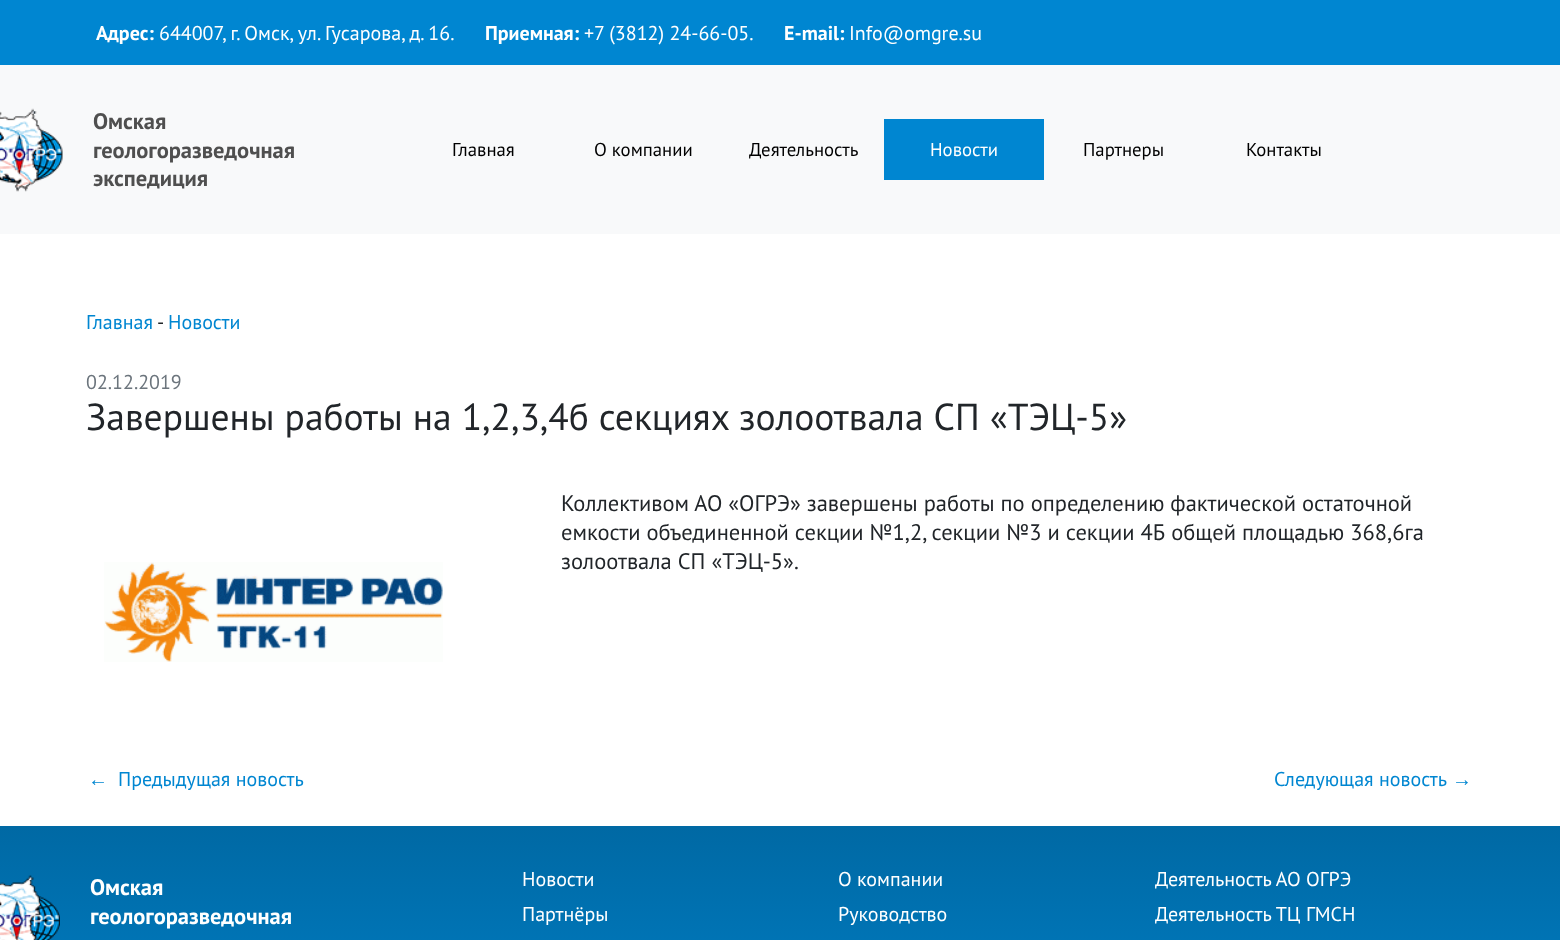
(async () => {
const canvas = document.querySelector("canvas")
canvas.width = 1560
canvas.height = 940
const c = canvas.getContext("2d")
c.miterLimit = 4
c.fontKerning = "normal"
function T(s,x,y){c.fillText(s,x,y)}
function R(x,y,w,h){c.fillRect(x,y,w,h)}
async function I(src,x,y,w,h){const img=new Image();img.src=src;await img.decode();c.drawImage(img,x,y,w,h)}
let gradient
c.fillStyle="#fff"
R(0,0,1560,940)
c.fillStyle="#0086d1"
R(0,0,1560,65)
c.font="bold 20px PT Sans"
c.fillStyle="#fff"
T("Адрес:",96,40)
c.font="20px PT Sans"
T("644007, г. Омск, ул. Гусарова, д. 16.",159,40)
c.font="bold 20px PT Sans"
T("Приемная:",485,40)
c.font="20px PT Sans"
T("+7 (3812) 24-66-05.",584,40)
c.font="bold 20px PT Sans"
T("E-mail:",784,40)
c.font="20px PT Sans"
T("Info@omgre.su",849,40)
c.fillStyle="#f8f9fa"
R(0,65,1560,169)
await I("1.png",0,108,63,84)
c.font="bold 22.5px PT Sans"
c.fillStyle="#4f4f4f"
T("Омская",93,129)
T("геологоразведочная",93,158)
T("экспедиция",93,186)
c.font="18.75px PT Sans"
c.fillStyle="#000"
T("Главная",452,156)
T("О компании",594,156)
T("Деятельность",749,156)
c.fillStyle="#0086d1"
R(884,119,160,61)
c.fillStyle="#fff"
T("Новости",930,156)
c.fillStyle="#000"
T("Партнеры",1083,156)
T("Контакты",1246,156)
c.font="20px PT Sans"
c.fillStyle="#0086d1"
T("Главная",86,329)
c.fillStyle="#212529"
T("-",157,329)
c.fillStyle="#0086d1"
T("Новости",168,329)
c.fillStyle="#6c757d"
T("02.12.2019",86,389)
c.font="37.5px PT Sans"
c.fillStyle="#212529"
T("Завершены работы на 1,2,3,4б секциях золоотвала СП «ТЭЦ-5»",86,430)
c.font="22.5px PT Sans"
T("Коллективом АО «ОГРЭ» завершены работы по определению фактической остаточной",561,511)
T("емкости объединенной секции №1,2, секции №3 и секции 4Б общей площадью 368,6га",561,540)
T("золоотвала СП «ТЭЦ-5».",561,569)
await I("2.png",104,562,339,100)
gradient = c.createLinearGradient(780,826,780,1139)
gradient.addColorStop(0,"#0069a4")
gradient.addColorStop(1,"#0086d1")
c.fillStyle = gradient
R(0,826,1560,114)
c.font="20px Liberation Sans"
c.fillStyle="#0086d1"
T("←",88,786)
c.font="20px PT Sans"
T("Предыдущая новость",118,786)
T("Следующая новость",1274,786)
c.font="20px Liberation Sans"
T("→",1452,786)
await I("3.png",0,875,60,65)
c.font="bold 22.5px PT Sans"
c.fillStyle="#fff"
T("Омская",90,895)
T("геологоразведочная",90,924)
c.font="20px PT Sans"
T("Новости",522,886)
T("Партнёры",522,921)
T("О компании",838,886)
T("Руководство",838,921)
T("Деятельность АО ОГРЭ",1155,886)
T("Деятельность ТЦ ГМСН",1155,921)
})()
